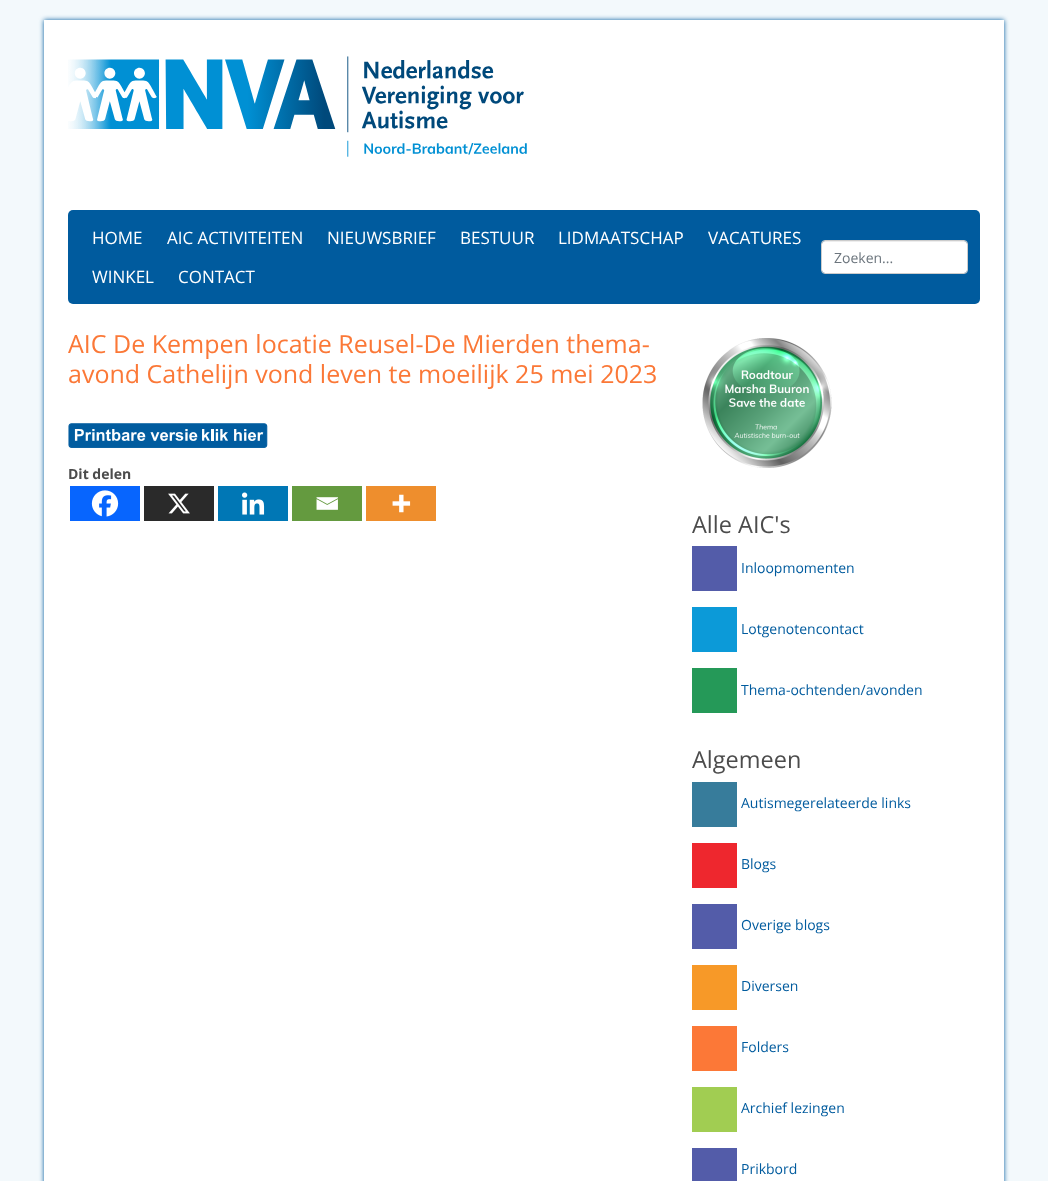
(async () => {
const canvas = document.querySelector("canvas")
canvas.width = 1048
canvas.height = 1181
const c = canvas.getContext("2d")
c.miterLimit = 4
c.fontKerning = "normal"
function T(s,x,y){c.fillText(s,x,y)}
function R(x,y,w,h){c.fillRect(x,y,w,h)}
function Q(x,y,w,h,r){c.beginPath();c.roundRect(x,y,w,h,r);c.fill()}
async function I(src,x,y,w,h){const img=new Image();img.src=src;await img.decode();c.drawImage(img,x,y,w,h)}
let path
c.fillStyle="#f3f9fc"
R(0,0,1048,1181)
c.fillStyle="#005b9e"
c.filter="blur(2.5px)"
c.beginPath()
c.rect(44,20,960,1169)
c.fill()
c.filter="none"
c.fillStyle="#fff"
R(44,20,960,1161)
await I("1.png",68,56,459,101)
c.fillStyle="#005b9e"
Q(68,210,912,94,5)
c.font="17px Open Sans"
c.fillStyle="#fff"
T("HOME",92,244)
T("AIC ACTIVITEITEN",167,244)
T("NIEUWSBRIEF",327,244)
T("BESTUUR",460,244)
T("LIDMAATSCHAP",558,244)
T("VACATURES",708,244)
T("WINKEL",92,283)
T("CONTACT",178,283)
Q(822,241,145,32,3)
c.fillStyle="#00000012"
path = new Path2D("M825 242h139c2 0 3 1 3 3v-1c0-2-1-3-3-3h-139c-2 0-3 1-3 3v1c0-2 1-3 3-3z")
c.fill(path)
c.beginPath()
c.roundRect(821.5,240.5,146,33,3.5)
c.strokeStyle="#ccc"
c.stroke()
c.font="14px Open Sans"
c.fillStyle="#6c757d"
T("Zoeken...",834,263)
c.font="25px Open Sans"
c.fillStyle="#fb7837"
T("AIC De Kempen locatie Reusel-De Mierden thema-",68,353)
T("avond Cathelijn vond leven te moeilijk 25 mei 2023",68,383)
await I("2.png",68,423,200,25)
c.font="bold 14px Open Sans"
c.fillStyle="#4c4c4c"
T("Dit delen",68,479)
c.fillStyle="#0765fe"
R(70,486,70,35)
await I("3.png",91,490,28,27)
c.fillStyle="#2a2a2a"
R(144,486,70,35)
await I("4.png",168,493,22,21)
c.fillStyle="#0077b5"
R(218,486,70,35)
await I("5.png",242,492,23,23)
c.fillStyle="#649a3f"
R(292,486,70,35)
await I("6.png",316,497,22,13)
c.fillStyle="#ee8e2d"
R(366,486,70,35)
await I("7.png",392,494,19,19)
await I("8.png",702,338,130,130)
c.font="23.5px Open Sans"
c.fillStyle="#4c4c4c"
T("Alle AIC's",692,533)
c.font="14px Open Sans"
c.fillStyle="#005b9e"
T("Inloopmomenten",741,573)
c.fillStyle="#535ca9"
R(692,546,45,45)
c.fillStyle="#005b9e"
T("Lotgenotencontact",741,634)
c.fillStyle="#0c9ad8"
R(692,607,45,45)
c.fillStyle="#005b9e"
T("Thema-ochtenden/avonden",741,695)
c.fillStyle="#259958"
R(692,668,45,45)
c.font="23.5px Open Sans"
c.fillStyle="#4c4c4c"
T("Algemeen",692,768)
c.font="14px Open Sans"
c.fillStyle="#005b9e"
T("Autismegerelateerde links",741,808)
c.fillStyle="#377c9b"
R(692,782,45,45)
c.fillStyle="#005b9e"
T("Blogs",741,869)
c.fillStyle="#ee272e"
R(692,843,45,45)
c.fillStyle="#005b9e"
T("Overige blogs",741,930)
c.fillStyle="#535ca9"
R(692,904,45,45)
c.fillStyle="#005b9e"
T("Diversen",741,991)
c.fillStyle="#f79928"
R(692,965,45,45)
c.fillStyle="#005b9e"
T("Folders",741,1052)
c.fillStyle="#fc7837"
R(692,1026,45,45)
c.fillStyle="#005b9e"
T("Archief lezingen",741,1113)
c.fillStyle="#a1cd52"
R(692,1087,45,45)
c.fillStyle="#005b9e"
T("Prikbord",741,1174)
c.fillStyle="#535ca9"
R(692,1148,45,33)
})()
